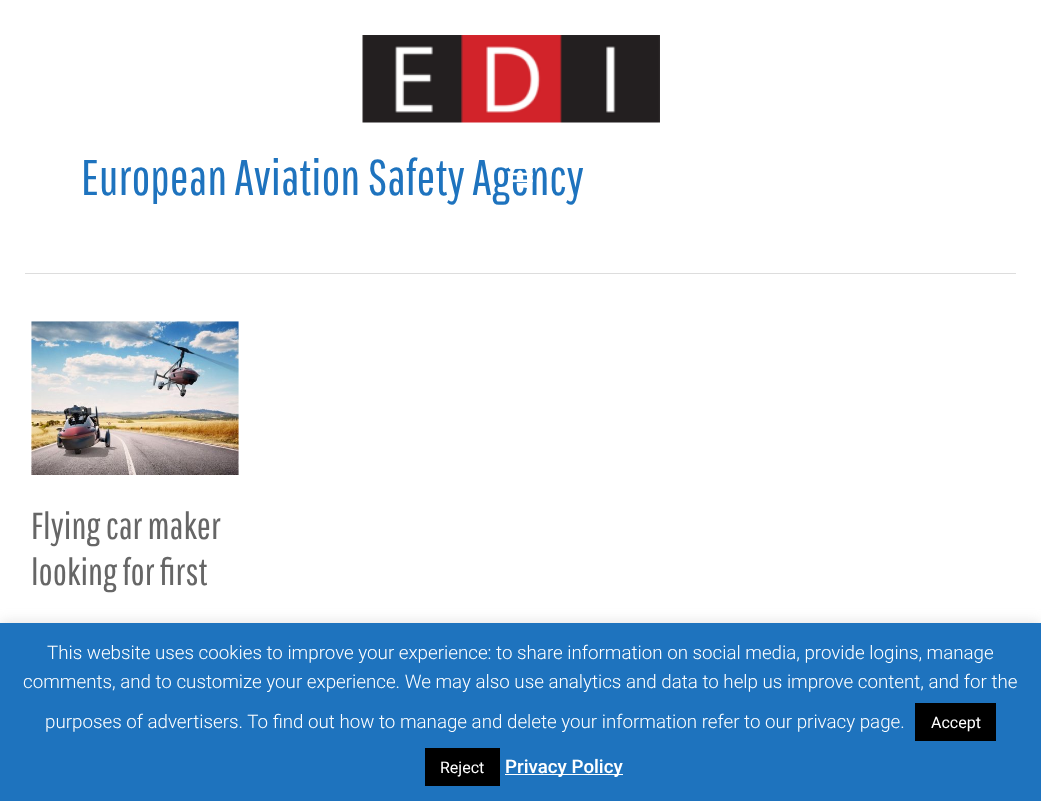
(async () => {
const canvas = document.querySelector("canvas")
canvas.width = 1041
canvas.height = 801
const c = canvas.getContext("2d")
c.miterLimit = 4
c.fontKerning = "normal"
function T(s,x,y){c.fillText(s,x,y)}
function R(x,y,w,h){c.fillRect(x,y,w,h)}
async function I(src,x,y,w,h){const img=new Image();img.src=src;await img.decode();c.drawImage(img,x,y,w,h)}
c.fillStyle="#fff"
R(0,0,1041,801)
await I("1.png",362,35,298,88)
c.font="50px Pathway Gothic One"
c.fillStyle="#1e73be"
T("European Aviation Safety Agency",81,195)
await I("2.png",509,167,24,16)
c.fillStyle="#ddd"
R(25,273,991,1)
await I("3.png",31,321,208,154)
c.font="37.5px Pathway Gothic One"
c.fillStyle="#666"
T("Flying car maker",31,539)
T("looking for first",31,585)
c.fillStyle="#acabab4d"
c.filter="blur(6px)"
c.beginPath()
c.rect(0,621,1041,179)
c.fill()
c.filter="none"
c.fillStyle="#1e73be"
R(0,623,1041,178)
c.font="300 18.75px Roboto"
c.fillStyle="#fff"
T("This website uses cookies to improve your experience: to share information on social media, provide logins, manage",47,659)
T("comments, and to customize your experience. We may also use analytics and data to help us improve content, and for the",23,688)
T("purposes of advertisers. To find out how to manage and delete your information refer to our privacy page.",45,728)
c.fillStyle="#000"
R(915,703,81,38)
c.font="16px Roboto"
c.fillStyle="#fff"
T("Accept",931,728)
c.fillStyle="#000"
R(425,748,75,38)
c.fillStyle="#fff"
T("Reject",440,773)
R(505,774,118,1)
c.font="500 18.75px Roboto"
T("Privacy Policy",505,773)
})()
